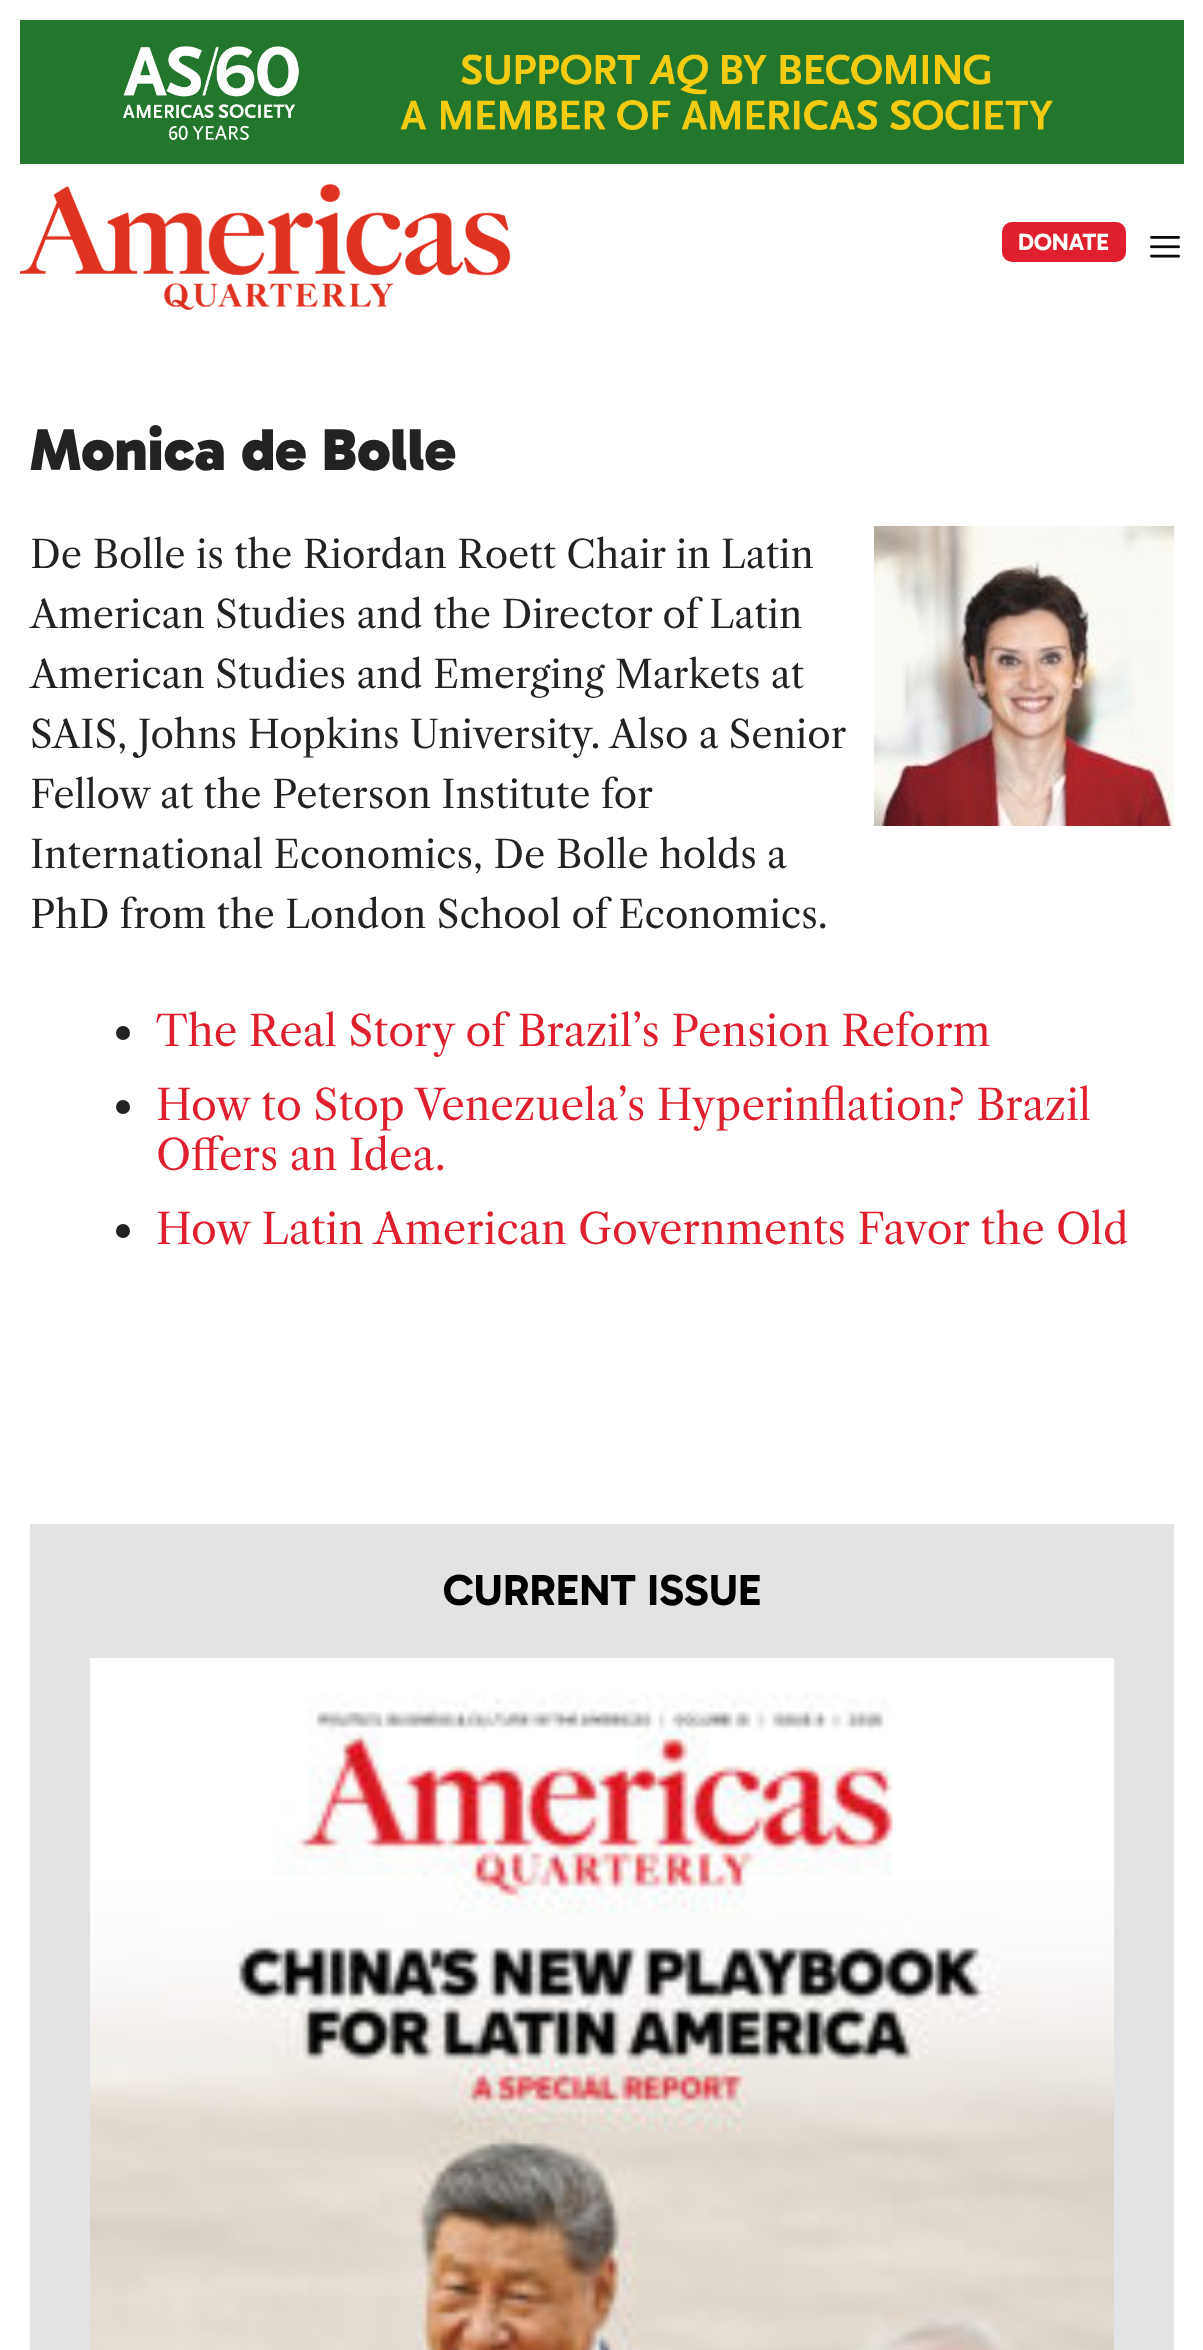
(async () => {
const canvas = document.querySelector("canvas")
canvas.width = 1203
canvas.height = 2350
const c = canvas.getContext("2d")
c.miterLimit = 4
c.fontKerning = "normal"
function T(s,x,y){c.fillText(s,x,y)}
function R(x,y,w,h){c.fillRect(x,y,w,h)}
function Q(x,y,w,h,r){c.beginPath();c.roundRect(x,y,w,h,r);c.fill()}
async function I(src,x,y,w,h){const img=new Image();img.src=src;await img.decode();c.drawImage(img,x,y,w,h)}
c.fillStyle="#fff"
R(0,0,1203,2350)
await I("1.png",20,20,1164,144)
await I("2.png",20,183,490,127)
c.fillStyle="#df1f2d"
Q(1002,222,124,40,10)
c.font="bold 24px Gabarito"
c.fillStyle="#fff"
T("DONATE",1018,250)
await I("3.png",1150,236,30,22)
c.font="900 60px Gabarito"
c.fillStyle="#222"
T("Monica de Bolle",30,470)
c.font="38px Libre Caslon Text"
T("De Bolle is the Riordan Roett Chair in Latin",30,568)
T("American Studies and the Director of Latin",30,628)
T("American Studies and Emerging Markets at",30,688)
T("SAIS, Johns Hopkins University. Also a Senior",30,748)
T("Fellow at the Peterson Institute for",30,808)
T("International Economics, De Bolle holds a",30,868)
T("PhD from the London School of Economics.",30,928)
await I("4.png",874,526,300,300)
c.beginPath()
c.arc(123,1033,7,0,7)
c.fill()
c.font="42px Libre Caslon Text"
c.fillStyle="#df1f2d"
T("The Real Story of Brazil’s Pension Reform",156,1046)
c.fillStyle="#222"
c.beginPath()
c.arc(123,1107,7,0,7)
c.fill()
c.fillStyle="#df1f2d"
T("How to Stop Venezuela’s Hyperinflation? Brazil",156,1120)
T("Offers an Idea.",156,1170)
c.fillStyle="#222"
c.beginPath()
c.arc(123,1231,7,0,7)
c.fill()
c.fillStyle="#df1f2d"
T("How Latin American Governments Favor the Old",156,1244)
c.fillStyle="#e2e3e4"
R(30,1524,1144,826)
c.font="bold 44px Gabarito"
c.fillStyle="#000"
T("CURRENT ISSUE",443,1605)
await I("5.png",90,1658,1024,692)
})()
